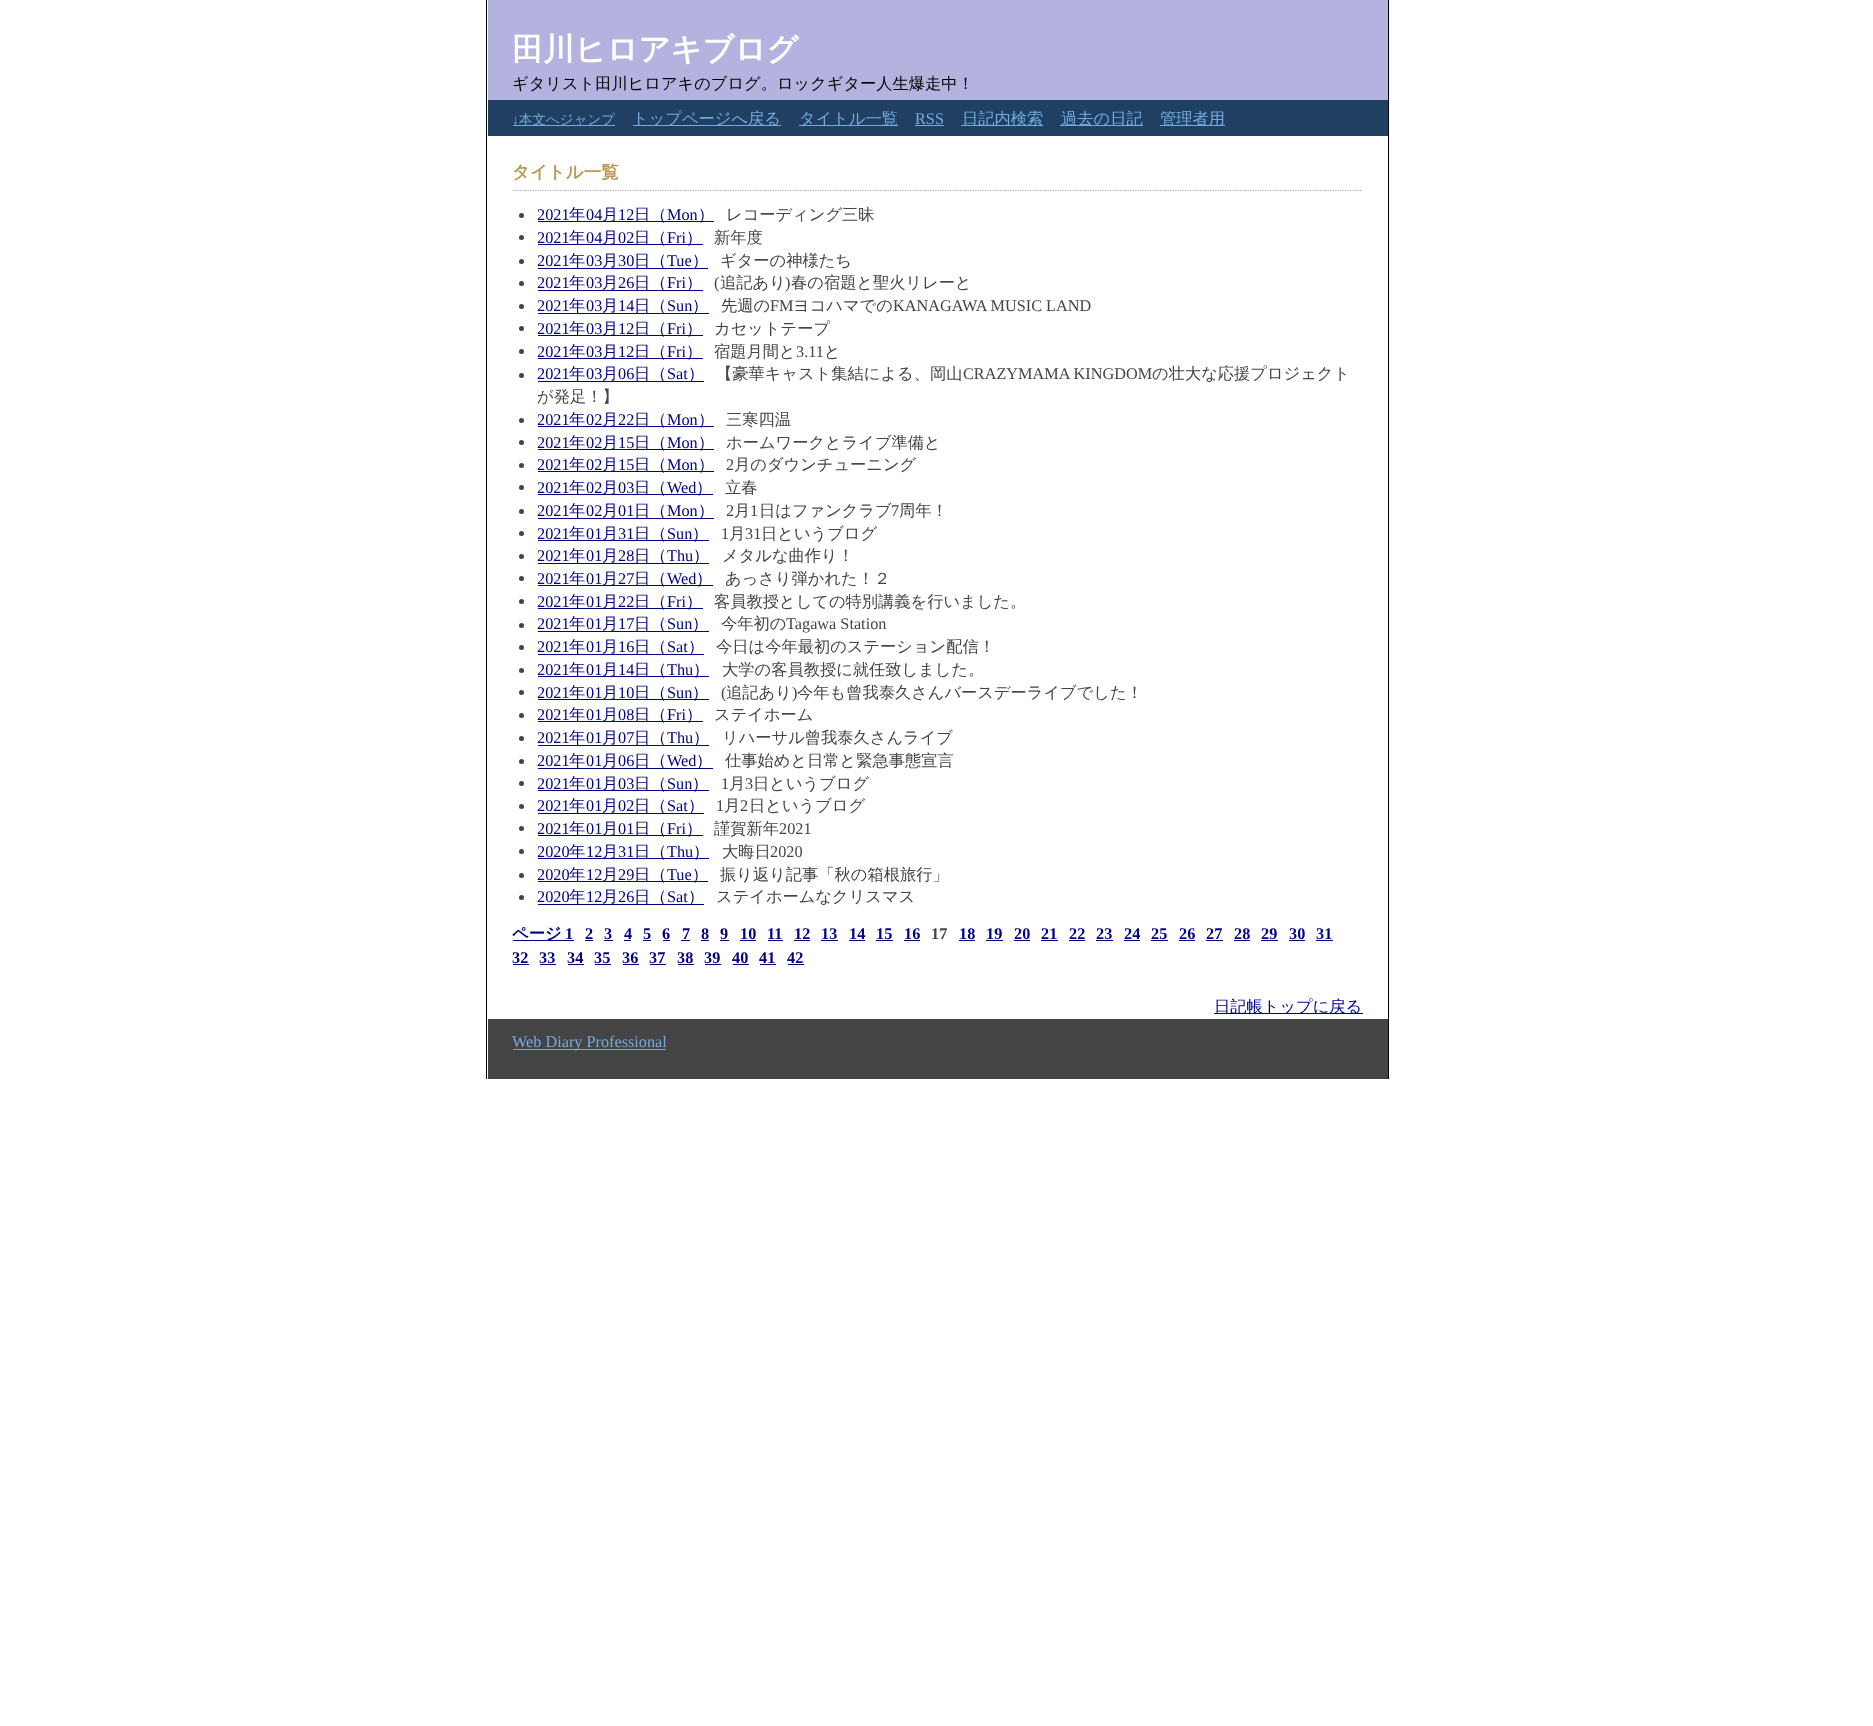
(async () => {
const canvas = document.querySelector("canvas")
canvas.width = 1873
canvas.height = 1726
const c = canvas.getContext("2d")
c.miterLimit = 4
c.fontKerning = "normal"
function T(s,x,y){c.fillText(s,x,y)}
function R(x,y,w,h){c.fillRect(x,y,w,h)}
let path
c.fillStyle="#fff"
R(0,0,1873,1726)
c.fillStyle="#000"
R(1388,0,1,1079)
R(486,0,1,1079)
c.fillStyle="#b4b3df"
R(488,0,900,100)
c.font="bold 31.25px WenQuanYi Zen Hei"
c.fillStyle="#fff"
T("田川ヒロアキブログ",512,60)
c.font="500 16.25px WenQuanYi Zen Hei"
c.fillStyle="#000"
T("ギタリスト田川ヒロアキのブログ。ロックギター人生爆走中！",512,89)
c.fillStyle="#1f4063"
R(488,100,900,36)
c.font="13.5px Liberation Serif"
c.fillStyle="#7ad"
T("↓",512,124)
R(513,125,102,1)
c.font="500 13.5px WenQuanYi Zen Hei"
T("本文へジャンプ",519,124)
R(633,125,148,1)
c.font="500 16.25px WenQuanYi Zen Hei"
T("トップページへ戻る",632,124)
R(799,125,99,1)
T("タイトル一覧",799,124)
c.font="16.25px Liberation Serif"
T("RSS",915,124)
R(915,125,29,1)
R(961,125,82,1)
c.font="500 16.25px WenQuanYi Zen Hei"
T("日記内検索",962,124)
R(1060,125,83,1)
T("過去の日記",1061,124)
R(1160,125,65,1)
T("管理者用",1160,124)
path = new Path2D("M512.5 190.5h850")
c.strokeStyle="#aaa"
c.lineWidth=1.2
c.setLineDash([1.25,1.25])
c.stroke(path)
c.font="bold 17.5px WenQuanYi Zen Hei"
c.fillStyle="#b95"
T("タイトル一覧",512,178)
c.fillStyle="#444"
c.beginPath()
c.arc(521.5,215.5,2.5,0,7)
c.fill()
c.font="16.25px Liberation Serif"
c.fillStyle="#000080"
T("2021",537,220)
R(538,221,176,1)
c.font="500 16.25px WenQuanYi Zen Hei"
T("年",569,220)
c.font="16.25px Liberation Serif"
T("04",586,220)
c.font="500 16.25px WenQuanYi Zen Hei"
T("月",602,220)
c.font="16.25px Liberation Serif"
T("12",618,220)
c.font="500 16.25px WenQuanYi Zen Hei"
T("日（",634,220)
c.font="16.25px Liberation Serif"
T("Mon",667,220)
c.font="500 16.25px WenQuanYi Zen Hei"
T("）",698,220)
c.fillStyle="#444"
T("レコーディング三昧",726,220)
c.beginPath()
c.arc(521.5,237.5,2.5,0,7)
c.fill()
c.font="16.25px Liberation Serif"
c.fillStyle="#000080"
T("2021",537,243)
R(538,244,165,1)
c.font="500 16.25px WenQuanYi Zen Hei"
T("年",569,243)
c.font="16.25px Liberation Serif"
T("04",586,243)
c.font="500 16.25px WenQuanYi Zen Hei"
T("月",602,243)
c.font="16.25px Liberation Serif"
T("02",618,243)
c.font="500 16.25px WenQuanYi Zen Hei"
T("日（",634,243)
c.font="16.25px Liberation Serif"
T("Fri",667,243)
c.font="500 16.25px WenQuanYi Zen Hei"
T("）",686,243)
c.fillStyle="#444"
T("新年度",714,243)
c.beginPath()
c.arc(521.5,261.5,2.5,0,7)
c.fill()
c.font="16.25px Liberation Serif"
c.fillStyle="#000080"
T("2021",537,266)
c.font="500 16.25px WenQuanYi Zen Hei"
T("年",569,266)
c.font="16.25px Liberation Serif"
T("03",586,266)
R(538,268,170,1)
c.font="500 16.25px WenQuanYi Zen Hei"
T("月",602,266)
c.font="16.25px Liberation Serif"
T("30",618,266)
c.font="500 16.25px WenQuanYi Zen Hei"
T("日（",634,266)
c.font="16.25px Liberation Serif"
T("Tue",667,266)
c.font="500 16.25px WenQuanYi Zen Hei"
T("）",692,266)
c.fillStyle="#444"
T("ギターの神様たち",720,266)
c.beginPath()
c.arc(521.5,283.5,2.5,0,7)
c.fill()
c.font="16.25px Liberation Serif"
c.fillStyle="#000080"
T("2021",537,288)
c.font="500 16.25px WenQuanYi Zen Hei"
T("年",569,288)
c.font="16.25px Liberation Serif"
T("03",586,288)
R(538,290,165,1)
c.font="500 16.25px WenQuanYi Zen Hei"
T("月",602,288)
c.font="16.25px Liberation Serif"
T("26",618,288)
c.font="500 16.25px WenQuanYi Zen Hei"
T("日（",634,288)
c.font="16.25px Liberation Serif"
T("Fri",667,288)
c.font="500 16.25px WenQuanYi Zen Hei"
T("）",686,288)
c.font="16.25px Liberation Serif"
c.fillStyle="#444"
T("(",714,288)
c.font="500 16.25px WenQuanYi Zen Hei"
T("追記あり",720,288)
c.font="16.25px Liberation Serif"
T(")",785,288)
c.font="500 16.25px WenQuanYi Zen Hei"
T("春の宿題と聖火リレーと",791,288)
c.beginPath()
c.arc(521.5,306.5,2.5,0,7)
c.fill()
c.font="16.25px Liberation Serif"
c.fillStyle="#000080"
T("2021",537,311)
c.font="500 16.25px WenQuanYi Zen Hei"
T("年",569,311)
c.font="16.25px Liberation Serif"
T("03",586,311)
R(538,313,171,1)
c.font="500 16.25px WenQuanYi Zen Hei"
T("月",602,311)
c.font="16.25px Liberation Serif"
T("14",618,311)
c.font="500 16.25px WenQuanYi Zen Hei"
T("日（",634,311)
c.font="16.25px Liberation Serif"
T("Sun",667,311)
c.font="500 16.25px WenQuanYi Zen Hei"
T("）",692,311)
c.fillStyle="#444"
T("先週の",721,311)
c.font="16.25px Liberation Serif"
T("FM",770,311)
c.font="500 16.25px WenQuanYi Zen Hei"
T("ヨコハマでの",793,311)
c.font="16.25px Liberation Serif"
T("KANAGAWA MUSIC LAND",893,311)
c.beginPath()
c.arc(521.5,328.5,2.5,0,7)
c.fill()
c.fillStyle="#000080"
T("2021",537,334)
R(538,335,165,1)
c.font="500 16.25px WenQuanYi Zen Hei"
T("年",569,334)
c.font="16.25px Liberation Serif"
T("03",586,334)
c.font="500 16.25px WenQuanYi Zen Hei"
T("月",602,334)
c.font="16.25px Liberation Serif"
T("12",618,334)
c.font="500 16.25px WenQuanYi Zen Hei"
T("日（",634,334)
c.font="16.25px Liberation Serif"
T("Fri",667,334)
c.font="500 16.25px WenQuanYi Zen Hei"
T("）",686,334)
c.fillStyle="#444"
T("カセットテープ",714,334)
c.beginPath()
c.arc(521.5,351.5,2.5,0,7)
c.fill()
c.font="16.25px Liberation Serif"
c.fillStyle="#000080"
T("2021",537,357)
R(538,358,165,1)
c.font="500 16.25px WenQuanYi Zen Hei"
T("年",569,357)
c.font="16.25px Liberation Serif"
T("03",586,357)
c.font="500 16.25px WenQuanYi Zen Hei"
T("月",602,357)
c.font="16.25px Liberation Serif"
T("12",618,357)
c.font="500 16.25px WenQuanYi Zen Hei"
T("日（",634,357)
c.font="16.25px Liberation Serif"
T("Fri",667,357)
c.font="500 16.25px WenQuanYi Zen Hei"
T("）",686,357)
c.fillStyle="#444"
T("宿題月間と",714,357)
c.font="16.25px Liberation Serif"
T("3.11",796,357)
c.font="500 16.25px WenQuanYi Zen Hei"
T("と",824,357)
c.beginPath()
c.arc(521.5,375.5,2.5,0,7)
c.fill()
c.font="16.25px Liberation Serif"
c.fillStyle="#000080"
T("2021",537,379)
c.font="500 16.25px WenQuanYi Zen Hei"
T("年",569,379)
c.font="16.25px Liberation Serif"
T("03",586,379)
R(538,381,166,1)
c.font="500 16.25px WenQuanYi Zen Hei"
T("月",602,379)
c.font="16.25px Liberation Serif"
T("06",618,379)
c.font="500 16.25px WenQuanYi Zen Hei"
T("日（",634,379)
c.font="16.25px Liberation Serif"
T("Sat",667,379)
c.font="500 16.25px WenQuanYi Zen Hei"
T("）",688,379)
c.fillStyle="#444"
T("【豪華キャスト集結による、岡山",716,379)
c.font="16.25px Liberation Serif"
T("CRAZYMAMA KINGDOM",963,379)
c.font="500 16.25px WenQuanYi Zen Hei"
T("の壮大な応援プロジェクト",1152,379)
T("が発足！】",537,402)
c.beginPath()
c.arc(521.5,420.5,2.5,0,7)
c.fill()
c.font="16.25px Liberation Serif"
c.fillStyle="#000080"
T("2021",537,425)
R(538,426,176,1)
c.font="500 16.25px WenQuanYi Zen Hei"
T("年",569,425)
c.font="16.25px Liberation Serif"
T("02",586,425)
c.font="500 16.25px WenQuanYi Zen Hei"
T("月",602,425)
c.font="16.25px Liberation Serif"
T("22",618,425)
c.font="500 16.25px WenQuanYi Zen Hei"
T("日（",634,425)
c.font="16.25px Liberation Serif"
T("Mon",667,425)
c.font="500 16.25px WenQuanYi Zen Hei"
T("）",698,425)
c.fillStyle="#444"
T("三寒四温",726,425)
c.beginPath()
c.arc(521.5,442.5,2.5,0,7)
c.fill()
c.font="16.25px Liberation Serif"
c.fillStyle="#000080"
T("2021",537,448)
R(538,449,176,1)
c.font="500 16.25px WenQuanYi Zen Hei"
T("年",569,448)
c.font="16.25px Liberation Serif"
T("02",586,448)
c.font="500 16.25px WenQuanYi Zen Hei"
T("月",602,448)
c.font="16.25px Liberation Serif"
T("15",618,448)
c.font="500 16.25px WenQuanYi Zen Hei"
T("日（",634,448)
c.font="16.25px Liberation Serif"
T("Mon",667,448)
c.font="500 16.25px WenQuanYi Zen Hei"
T("）",698,448)
c.fillStyle="#444"
T("ホームワークとライブ準備と",726,448)
c.beginPath()
c.arc(521.5,465.5,2.5,0,7)
c.fill()
c.font="16.25px Liberation Serif"
c.fillStyle="#000080"
T("2021",537,470)
R(538,471,176,1)
c.font="500 16.25px WenQuanYi Zen Hei"
T("年",569,470)
c.font="16.25px Liberation Serif"
T("02",586,470)
c.font="500 16.25px WenQuanYi Zen Hei"
T("月",602,470)
c.font="16.25px Liberation Serif"
T("15",618,470)
c.font="500 16.25px WenQuanYi Zen Hei"
T("日（",634,470)
c.font="16.25px Liberation Serif"
T("Mon",667,470)
c.font="500 16.25px WenQuanYi Zen Hei"
T("）",698,470)
c.font="16.25px Liberation Serif"
c.fillStyle="#444"
T("2",726,470)
c.font="500 16.25px WenQuanYi Zen Hei"
T("月のダウンチューニング",734,470)
c.beginPath()
c.arc(521.5,487.5,2.5,0,7)
c.fill()
c.font="16.25px Liberation Serif"
c.fillStyle="#000080"
T("2021",537,493)
R(538,494,175,1)
c.font="500 16.25px WenQuanYi Zen Hei"
T("年",569,493)
c.font="16.25px Liberation Serif"
T("02",586,493)
c.font="500 16.25px WenQuanYi Zen Hei"
T("月",602,493)
c.font="16.25px Liberation Serif"
T("03",618,493)
c.font="500 16.25px WenQuanYi Zen Hei"
T("日（",634,493)
c.font="16.25px Liberation Serif"
T("Wed",667,493)
c.font="500 16.25px WenQuanYi Zen Hei"
T("）",696,493)
c.fillStyle="#444"
T("立春",725,493)
c.beginPath()
c.arc(521.5,511.5,2.5,0,7)
c.fill()
c.font="16.25px Liberation Serif"
c.fillStyle="#000080"
T("2021",537,516)
c.font="500 16.25px WenQuanYi Zen Hei"
T("年",569,516)
c.font="16.25px Liberation Serif"
T("02",586,516)
R(538,518,176,1)
c.font="500 16.25px WenQuanYi Zen Hei"
T("月",602,516)
c.font="16.25px Liberation Serif"
T("01",618,516)
c.font="500 16.25px WenQuanYi Zen Hei"
T("日（",634,516)
c.font="16.25px Liberation Serif"
T("Mon",667,516)
c.font="500 16.25px WenQuanYi Zen Hei"
T("）",698,516)
c.font="16.25px Liberation Serif"
c.fillStyle="#444"
T("2",726,516)
c.font="500 16.25px WenQuanYi Zen Hei"
T("月",734,516)
c.font="16.25px Liberation Serif"
T("1",750,516)
c.font="500 16.25px WenQuanYi Zen Hei"
T("日はファンクラブ",759,516)
c.font="16.25px Liberation Serif"
T("7",891,516)
c.font="500 16.25px WenQuanYi Zen Hei"
T("周年！",899,516)
c.beginPath()
c.arc(521.5,533.5,2.5,0,7)
c.fill()
c.font="16.25px Liberation Serif"
c.fillStyle="#000080"
T("2021",537,539)
R(538,540,171,1)
c.font="500 16.25px WenQuanYi Zen Hei"
T("年",569,539)
c.font="16.25px Liberation Serif"
T("01",586,539)
c.font="500 16.25px WenQuanYi Zen Hei"
T("月",602,539)
c.font="16.25px Liberation Serif"
T("31",618,539)
c.font="500 16.25px WenQuanYi Zen Hei"
T("日（",634,539)
c.font="16.25px Liberation Serif"
T("Sun",667,539)
c.font="500 16.25px WenQuanYi Zen Hei"
T("）",692,539)
c.font="16.25px Liberation Serif"
c.fillStyle="#444"
T("1",721,539)
c.font="500 16.25px WenQuanYi Zen Hei"
T("月",729,539)
c.font="16.25px Liberation Serif"
T("31",745,539)
c.font="500 16.25px WenQuanYi Zen Hei"
T("日というブログ",761,539)
c.beginPath()
c.arc(521.5,556.5,2.5,0,7)
c.fill()
c.font="16.25px Liberation Serif"
c.fillStyle="#000080"
T("2021",537,561)
c.font="500 16.25px WenQuanYi Zen Hei"
T("年",569,561)
c.font="16.25px Liberation Serif"
T("01",586,561)
R(538,563,171,1)
c.font="500 16.25px WenQuanYi Zen Hei"
T("月",602,561)
c.font="16.25px Liberation Serif"
T("28",618,561)
c.font="500 16.25px WenQuanYi Zen Hei"
T("日（",634,561)
c.font="16.25px Liberation Serif"
T("Thu",667,561)
c.font="500 16.25px WenQuanYi Zen Hei"
T("）",693,561)
c.fillStyle="#444"
T("メタルな曲作り！",722,561)
c.beginPath()
c.arc(521.5,578.5,2.5,0,7)
c.fill()
c.font="16.25px Liberation Serif"
c.fillStyle="#000080"
T("2021",537,584)
R(538,585,175,1)
c.font="500 16.25px WenQuanYi Zen Hei"
T("年",569,584)
c.font="16.25px Liberation Serif"
T("01",586,584)
c.font="500 16.25px WenQuanYi Zen Hei"
T("月",602,584)
c.font="16.25px Liberation Serif"
T("27",618,584)
c.font="500 16.25px WenQuanYi Zen Hei"
T("日（",634,584)
c.font="16.25px Liberation Serif"
T("Wed",667,584)
c.font="500 16.25px WenQuanYi Zen Hei"
T("）",696,584)
c.fillStyle="#444"
T("あっさり弾かれた！２",725,584)
c.beginPath()
c.arc(521.5,601.5,2.5,0,7)
c.fill()
c.font="16.25px Liberation Serif"
c.fillStyle="#000080"
T("2021",537,607)
R(538,608,165,1)
c.font="500 16.25px WenQuanYi Zen Hei"
T("年",569,607)
c.font="16.25px Liberation Serif"
T("01",586,607)
c.font="500 16.25px WenQuanYi Zen Hei"
T("月",602,607)
c.font="16.25px Liberation Serif"
T("22",618,607)
c.font="500 16.25px WenQuanYi Zen Hei"
T("日（",634,607)
c.font="16.25px Liberation Serif"
T("Fri",667,607)
c.font="500 16.25px WenQuanYi Zen Hei"
T("）",686,607)
c.fillStyle="#444"
T("客員教授としての特別講義を行いました。",714,607)
c.beginPath()
c.arc(521.5,625.5,2.5,0,7)
c.fill()
c.font="16.25px Liberation Serif"
c.fillStyle="#000080"
T("2021",537,629)
c.font="500 16.25px WenQuanYi Zen Hei"
T("年",569,629)
c.font="16.25px Liberation Serif"
T("01",586,629)
R(538,631,171,1)
c.font="500 16.25px WenQuanYi Zen Hei"
T("月",602,629)
c.font="16.25px Liberation Serif"
T("17",618,629)
c.font="500 16.25px WenQuanYi Zen Hei"
T("日（",634,629)
c.font="16.25px Liberation Serif"
T("Sun",667,629)
c.font="500 16.25px WenQuanYi Zen Hei"
T("）",692,629)
c.fillStyle="#444"
T("今年初の",721,629)
c.font="16.25px Liberation Serif"
T("Tagawa Station",786,629)
c.beginPath()
c.arc(521.5,647.5,2.5,0,7)
c.fill()
c.fillStyle="#000080"
T("2021",537,652)
c.font="500 16.25px WenQuanYi Zen Hei"
T("年",569,652)
c.font="16.25px Liberation Serif"
T("01",586,652)
R(538,654,166,1)
c.font="500 16.25px WenQuanYi Zen Hei"
T("月",602,652)
c.font="16.25px Liberation Serif"
T("16",618,652)
c.font="500 16.25px WenQuanYi Zen Hei"
T("日（",634,652)
c.font="16.25px Liberation Serif"
T("Sat",667,652)
c.font="500 16.25px WenQuanYi Zen Hei"
T("）",688,652)
c.fillStyle="#444"
T("今日は今年最初のステーション配信！",716,652)
c.beginPath()
c.arc(521.5,670.5,2.5,0,7)
c.fill()
c.font="16.25px Liberation Serif"
c.fillStyle="#000080"
T("2021",537,675)
R(538,676,171,1)
c.font="500 16.25px WenQuanYi Zen Hei"
T("年",569,675)
c.font="16.25px Liberation Serif"
T("01",586,675)
c.font="500 16.25px WenQuanYi Zen Hei"
T("月",602,675)
c.font="16.25px Liberation Serif"
T("14",618,675)
c.font="500 16.25px WenQuanYi Zen Hei"
T("日（",634,675)
c.font="16.25px Liberation Serif"
T("Thu",667,675)
c.font="500 16.25px WenQuanYi Zen Hei"
T("）",693,675)
c.fillStyle="#444"
T("大学の客員教授に就任致しました。",722,675)
c.beginPath()
c.arc(521.5,692.5,2.5,0,7)
c.fill()
c.font="16.25px Liberation Serif"
c.fillStyle="#000080"
T("2021",537,698)
R(538,699,171,1)
c.font="500 16.25px WenQuanYi Zen Hei"
T("年",569,698)
c.font="16.25px Liberation Serif"
T("01",586,698)
c.font="500 16.25px WenQuanYi Zen Hei"
T("月",602,698)
c.font="16.25px Liberation Serif"
T("10",618,698)
c.font="500 16.25px WenQuanYi Zen Hei"
T("日（",634,698)
c.font="16.25px Liberation Serif"
T("Sun",667,698)
c.font="500 16.25px WenQuanYi Zen Hei"
T("）",692,698)
c.font="16.25px Liberation Serif"
c.fillStyle="#444"
T("(",721,698)
c.font="500 16.25px WenQuanYi Zen Hei"
T("追記あり",726,698)
c.font="16.25px Liberation Serif"
T(")",792,698)
c.font="500 16.25px WenQuanYi Zen Hei"
T("今年も曾我泰久さんバースデーライブでした！",797,698)
c.beginPath()
c.arc(521.5,715.5,2.5,0,7)
c.fill()
c.font="16.25px Liberation Serif"
c.fillStyle="#000080"
T("2021",537,720)
R(538,721,165,1)
c.font="500 16.25px WenQuanYi Zen Hei"
T("年",569,720)
c.font="16.25px Liberation Serif"
T("01",586,720)
c.font="500 16.25px WenQuanYi Zen Hei"
T("月",602,720)
c.font="16.25px Liberation Serif"
T("08",618,720)
c.font="500 16.25px WenQuanYi Zen Hei"
T("日（",634,720)
c.font="16.25px Liberation Serif"
T("Fri",667,720)
c.font="500 16.25px WenQuanYi Zen Hei"
T("）",686,720)
c.fillStyle="#444"
T("ステイホーム",714,720)
c.beginPath()
c.arc(521.5,738.5,2.5,0,7)
c.fill()
c.font="16.25px Liberation Serif"
c.fillStyle="#000080"
T("2021",537,743)
c.font="500 16.25px WenQuanYi Zen Hei"
T("年",569,743)
c.font="16.25px Liberation Serif"
T("01",586,743)
R(538,745,171,1)
c.font="500 16.25px WenQuanYi Zen Hei"
T("月",602,743)
c.font="16.25px Liberation Serif"
T("07",618,743)
c.font="500 16.25px WenQuanYi Zen Hei"
T("日（",634,743)
c.font="16.25px Liberation Serif"
T("Thu",667,743)
c.font="500 16.25px WenQuanYi Zen Hei"
T("）",693,743)
c.fillStyle="#444"
T("リハーサル曾我泰久さんライブ",722,743)
c.beginPath()
c.arc(521.5,761.5,2.5,0,7)
c.fill()
c.font="16.25px Liberation Serif"
c.fillStyle="#000080"
T("2021",537,766)
c.font="500 16.25px WenQuanYi Zen Hei"
T("年",569,766)
c.font="16.25px Liberation Serif"
T("01",586,766)
R(538,768,175,1)
c.font="500 16.25px WenQuanYi Zen Hei"
T("月",602,766)
c.font="16.25px Liberation Serif"
T("06",618,766)
c.font="500 16.25px WenQuanYi Zen Hei"
T("日（",634,766)
c.font="16.25px Liberation Serif"
T("Wed",667,766)
c.font="500 16.25px WenQuanYi Zen Hei"
T("）",696,766)
c.fillStyle="#444"
T("仕事始めと日常と緊急事態宣言",725,766)
c.beginPath()
c.arc(521.5,783.5,2.5,0,7)
c.fill()
c.font="16.25px Liberation Serif"
c.fillStyle="#000080"
T("2021",537,789)
R(538,790,171,1)
c.font="500 16.25px WenQuanYi Zen Hei"
T("年",569,789)
c.font="16.25px Liberation Serif"
T("01",586,789)
c.font="500 16.25px WenQuanYi Zen Hei"
T("月",602,789)
c.font="16.25px Liberation Serif"
T("03",618,789)
c.font="500 16.25px WenQuanYi Zen Hei"
T("日（",634,789)
c.font="16.25px Liberation Serif"
T("Sun",667,789)
c.font="500 16.25px WenQuanYi Zen Hei"
T("）",692,789)
c.font="16.25px Liberation Serif"
c.fillStyle="#444"
T("1",721,789)
c.font="500 16.25px WenQuanYi Zen Hei"
T("月",729,789)
c.font="16.25px Liberation Serif"
T("3",745,789)
c.font="500 16.25px WenQuanYi Zen Hei"
T("日というブログ",753,789)
c.beginPath()
c.arc(521.5,806.5,2.5,0,7)
c.fill()
c.font="16.25px Liberation Serif"
c.fillStyle="#000080"
T("2021",537,811)
c.font="500 16.25px WenQuanYi Zen Hei"
T("年",569,811)
c.font="16.25px Liberation Serif"
T("01",586,811)
R(538,813,166,1)
c.font="500 16.25px WenQuanYi Zen Hei"
T("月",602,811)
c.font="16.25px Liberation Serif"
T("02",618,811)
c.font="500 16.25px WenQuanYi Zen Hei"
T("日（",634,811)
c.font="16.25px Liberation Serif"
T("Sat",667,811)
c.font="500 16.25px WenQuanYi Zen Hei"
T("）",688,811)
c.font="16.25px Liberation Serif"
c.fillStyle="#444"
T("1",716,811)
c.font="500 16.25px WenQuanYi Zen Hei"
T("月",724,811)
c.font="16.25px Liberation Serif"
T("2",740,811)
c.font="500 16.25px WenQuanYi Zen Hei"
T("日というブログ",749,811)
c.beginPath()
c.arc(521.5,828.5,2.5,0,7)
c.fill()
c.font="16.25px Liberation Serif"
c.fillStyle="#000080"
T("2021",537,834)
R(538,835,165,1)
c.font="500 16.25px WenQuanYi Zen Hei"
T("年",569,834)
c.font="16.25px Liberation Serif"
T("01",586,834)
c.font="500 16.25px WenQuanYi Zen Hei"
T("月",602,834)
c.font="16.25px Liberation Serif"
T("01",618,834)
c.font="500 16.25px WenQuanYi Zen Hei"
T("日（",634,834)
c.font="16.25px Liberation Serif"
T("Fri",667,834)
c.font="500 16.25px WenQuanYi Zen Hei"
T("）",686,834)
c.fillStyle="#444"
T("謹賀新年",714,834)
c.font="16.25px Liberation Serif"
T("2021",779,834)
c.beginPath()
c.arc(521.5,851.5,2.5,0,7)
c.fill()
c.fillStyle="#000080"
T("2020",537,857)
R(538,858,171,1)
c.font="500 16.25px WenQuanYi Zen Hei"
T("年",569,857)
c.font="16.25px Liberation Serif"
T("12",586,857)
c.font="500 16.25px WenQuanYi Zen Hei"
T("月",602,857)
c.font="16.25px Liberation Serif"
T("31",618,857)
c.font="500 16.25px WenQuanYi Zen Hei"
T("日（",634,857)
c.font="16.25px Liberation Serif"
T("Thu",667,857)
c.font="500 16.25px WenQuanYi Zen Hei"
T("）",693,857)
c.fillStyle="#444"
T("大晦日",722,857)
c.font="16.25px Liberation Serif"
T("2020",770,857)
c.beginPath()
c.arc(521.5,875.5,2.5,0,7)
c.fill()
c.fillStyle="#000080"
T("2020",537,880)
R(538,881,170,1)
c.font="500 16.25px WenQuanYi Zen Hei"
T("年",569,880)
c.font="16.25px Liberation Serif"
T("12",586,880)
c.font="500 16.25px WenQuanYi Zen Hei"
T("月",602,880)
c.font="16.25px Liberation Serif"
T("29",618,880)
c.font="500 16.25px WenQuanYi Zen Hei"
T("日（",634,880)
c.font="16.25px Liberation Serif"
T("Tue",667,880)
c.font="500 16.25px WenQuanYi Zen Hei"
T("）",692,880)
c.fillStyle="#444"
T("振り返り記事「秋の箱根旅行」",720,880)
c.beginPath()
c.arc(521.5,897.5,2.5,0,7)
c.fill()
c.font="16.25px Liberation Serif"
c.fillStyle="#000080"
T("2020",537,902)
c.font="500 16.25px WenQuanYi Zen Hei"
T("年",569,902)
c.font="16.25px Liberation Serif"
T("12",586,902)
R(538,904,166,1)
c.font="500 16.25px WenQuanYi Zen Hei"
T("月",602,902)
c.font="16.25px Liberation Serif"
T("26",618,902)
c.font="500 16.25px WenQuanYi Zen Hei"
T("日（",634,902)
c.font="16.25px Liberation Serif"
T("Sat",667,902)
c.font="500 16.25px WenQuanYi Zen Hei"
T("）",688,902)
c.fillStyle="#444"
T("ステイホームなクリスマス",716,902)
c.fillStyle="#000080"
R(513,940,61,1)
c.font="bold 16.25px WenQuanYi Zen Hei"
T("ページ",512,939)
c.font="bold 16.25px Liberation Serif"
T("1",565,939)
T("2",585,939)
R(585,940,8,1)
T("3",604,939)
R(604,940,9,1)
T("4",624,939)
R(624,940,7,1)
T("5",643,939)
R(643,940,8,1)
T("6",662,939)
R(663,940,7,1)
T("7",682,939)
R(681,940,9,1)
T("8",701,939)
R(701,940,8,1)
T("9",720,939)
R(720,940,9,1)
T("10",740,939)
R(740,940,16,1)
T("11",767,939)
R(768,940,15,1)
T("12",794,939)
R(794,940,16,1)
T("13",821,939)
R(821,940,17,1)
T("14",849,939)
R(849,940,16,1)
T("15",876,939)
R(876,940,17,1)
T("16",904,939)
R(904,940,16,1)
c.fillStyle="#444"
T("17",931,939)
c.fillStyle="#000080"
T("18",959,939)
R(959,940,16,1)
T("19",986,939)
R(986,940,17,1)
T("20",1014,939)
R(1014,940,16,1)
T("21",1041,939)
R(1041,940,17,1)
T("22",1069,939)
R(1069,940,16,1)
T("23",1096,939)
R(1096,940,17,1)
T("24",1124,939)
R(1124,940,16,1)
T("25",1151,939)
R(1151,940,17,1)
T("26",1179,939)
R(1179,940,16,1)
T("27",1206,939)
R(1206,940,17,1)
T("28",1234,939)
R(1234,940,16,1)
T("29",1261,939)
R(1261,940,17,1)
T("30",1289,939)
R(1289,940,16,1)
T("31",1316,939)
R(1316,940,17,1)
T("32",512,963)
R(513,964,16,1)
T("33",539,963)
R(540,964,16,1)
T("34",567,963)
R(568,964,16,1)
T("35",594,963)
R(595,964,16,1)
T("36",622,963)
R(623,964,16,1)
T("37",649,963)
R(650,964,16,1)
T("38",677,963)
R(678,964,16,1)
T("39",704,963)
R(705,964,16,1)
T("40",732,963)
R(733,964,16,1)
T("41",759,963)
R(760,964,16,1)
T("42",787,963)
R(788,964,16,1)
R(1214,1013,149,1)
c.font="500 16.25px WenQuanYi Zen Hei"
T("日記帳トップに戻る",1214,1012)
c.fillStyle="#444"
R(488,1019,900,60)
c.fillStyle="#7ad"
R(513,1049,153,1)
c.font="16.25px Liberation Serif"
T("Web Diary Professional",512,1047)
})()
